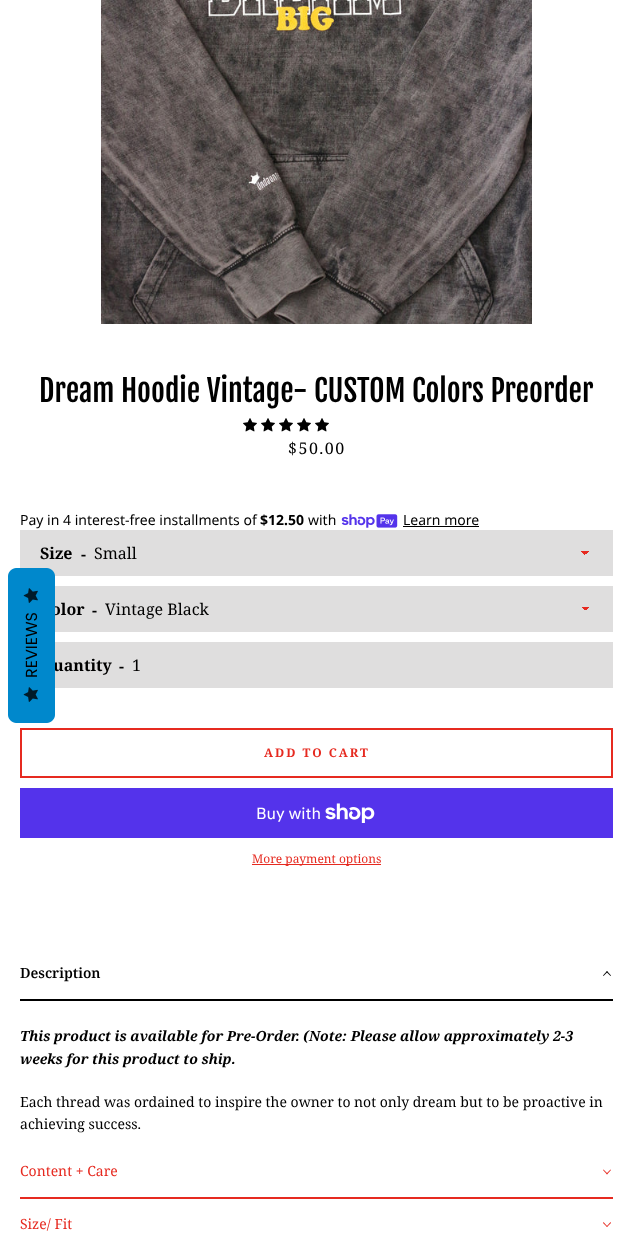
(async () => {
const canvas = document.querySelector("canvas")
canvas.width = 633
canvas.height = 1244
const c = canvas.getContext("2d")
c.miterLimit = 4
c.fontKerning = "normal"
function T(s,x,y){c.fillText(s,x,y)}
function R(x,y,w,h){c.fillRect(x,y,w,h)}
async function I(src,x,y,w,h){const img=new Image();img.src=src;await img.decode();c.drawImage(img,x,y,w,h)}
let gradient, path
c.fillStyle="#fff"
R(0,0,633,1244)
await I("1.png",101,0,431,324)
c.font="30px Fjalla One"
c.fillStyle="#000"
T("Dream Hoodie Vintage- CUSTOM Colors Preorder",39,402)
await I("2.png",243,418,14,14)
await I("2.png",261,418,14,14)
await I("2.png",279,418,14,14)
await I("2.png",297,418,14,14)
await I("2.png",315,418,14,14)
c.letterSpacing="1.5px"
c.font="16px Noto Serif"
T("$50.00",288,454)
c.letterSpacing="0px"
c.font="14px Noto Sans"
T("Pay in 4 interest-free installments of",20,525)
c.font="bold 14px Noto Sans"
T("$12.50",260,525)
c.font="14px Noto Sans"
T("with",308,525)
await I("3.png",341,514,57,14)
T("Learn more",403,525)
R(403,526,76,1)
c.fillStyle="#dfdede"
R(20,530,593,46)
c.font="bold 16px Noto Serif"
c.fillStyle="#000"
T("Size",40,559)
T("-",81,560)
gradient = c.createLinearGradient(585,551,589,555)
gradient.addColorStop(.5,"#e62a20")
gradient.addColorStop(.5,"#dfdede")
c.fillStyle = gradient
R(585,551,4,3)
gradient = c.createLinearGradient(581,555,585,551)
gradient.addColorStop(.5,"#dfdede")
gradient.addColorStop(.5,"#e62a20")
c.fillStyle = gradient
R(581,551,4,4)
c.font="16px Noto Serif"
c.fillStyle="#000"
T("Small",94,559)
c.fillStyle="#dfdede"
R(55,586,558,46)
c.font="bold 16px Noto Serif"
c.fillStyle="#000"
T("olor",51,615)
T("-",92,616)
gradient = c.createLinearGradient(585,607,589,611)
gradient.addColorStop(.5,"#e62a20")
gradient.addColorStop(.5,"#dfdede")
c.fillStyle = gradient
R(585,607,4,3)
gradient = c.createLinearGradient(581,611,585,607)
gradient.addColorStop(.5,"#dfdede")
gradient.addColorStop(.5,"#e62a20")
c.fillStyle = gradient
R(581,607,4,4)
c.font="16px Noto Serif"
c.fillStyle="#000"
T("Vintage Black",105,615)
c.fillStyle="#dfdede"
R(55,642,558,46)
c.font="bold 16px Noto Serif"
c.fillStyle="#000"
T("uantity",53,671)
T("-",119,672)
c.font="16px Noto Serif"
T("1",132,671)
c.strokeStyle="#e62a20"
c.lineWidth=2
c.strokeRect(21,729,591,48)
c.letterSpacing="2px"
c.font="bold 12px Noto Serif"
c.fillStyle="#e62a20"
T("ADD TO CART",264,757)
c.fillStyle="#5433eb"
R(20,788,593,50)
c.letterSpacing="0px"
c.font="16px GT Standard"
c.fillStyle="#fff"
T("Buy with",256,819)
await I("4.png",325,803,50,20)
c.fillStyle="#e62a20"
R(252,864,129,1)
c.font="12px Noto Serif"
T("More payment options",252,863)
c.fillStyle="#000"
R(20,999,593,2)
c.font="600 14px Noto Serif"
T("Description",20,978)
path = new Path2D("M603.5 976l-.5-.5l4-4.5l.5 1z")
c.fill(path)
path = new Path2D("M610.5 976l-4-4l.5-1l4 4.5z")
c.fill(path)
c.font="italic bold 14px Noto Serif"
T("This product is available for Pre-Order. (Note: Please allow approximately 2-3",20,1041)
T("weeks for this product to ship.",20,1064)
c.font="14px Noto Serif"
T("Each thread was ordained to inspire the owner to not only dream but to be proactive in",20,1107)
T("achieving success.",20,1129)
c.fillStyle="#e62a20"
R(20,1197,593,2)
T("Content + Care",20,1176)
path = new Path2D("M610.5 1169.5l.5 .5l-4 4.5l-.5-1z")
c.fill(path)
path = new Path2D("M603.5 1169.5l4 4l-.5 1l-4-4.5z")
c.fill(path)
T("Size/ Fit",20,1229)
path = new Path2D("M610.5 1222l.5 1l-4 4l-.5-.5z")
c.fill(path)
path = new Path2D("M603.5 1222l4 4.5l-.5 .5l-4-4z")
c.fill(path)
c.fillStyle="#08c"
path = new Path2D("M8 715v-139c0-4 4-8 8-8h31c4 0 8 4 8 8v139c0 4-4 8-8 8h-31c-4 0-8-4-8-8z")
c.fill(path)
await I("5.png",23,588,15,15)
c.font="16px Poppins"
c.fillStyle="#000"
c.save()
c.translate(37,678)
c.rotate(-90 * Math.PI / 180)
c.fillText("REVIEWS",0,0)
c.restore()
await I("5.png",23,687,15,15)
})()
